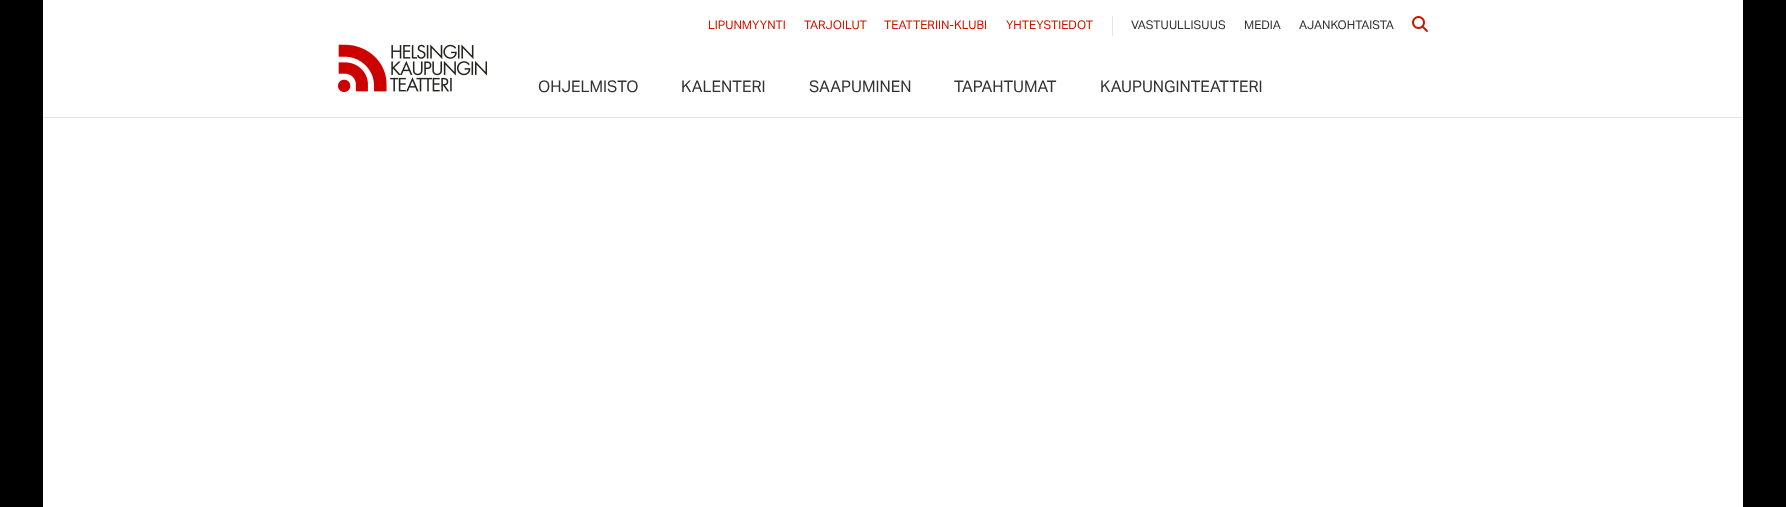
(async () => {
const canvas = document.querySelector("canvas")
canvas.width = 1786
canvas.height = 507
const c = canvas.getContext("2d")
c.miterLimit = 4
c.fontKerning = "normal"
function T(s,x,y){c.fillText(s,x,y)}
function R(x,y,w,h){c.fillRect(x,y,w,h)}
async function I(src,x,y,w,h){const img=new Image();img.src=src;await img.decode();c.drawImage(img,x,y,w,h)}
c.fillStyle="#000"
R(0,0,1786,507)
c.fillStyle="#fff"
R(43,0,1700,507)
c.fillStyle="#e5e5e5"
R(43,117,1700,1)
await I("1.png",338,44,149,48)
c.font="12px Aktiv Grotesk"
c.fillStyle="#ce1500"
T("LIPUNMYYNTI",708,29)
T("TARJOILUT",804,29)
T("TEATTERIIN-KLUBI",884,29)
T("YHTEYSTIEDOT",1006,29)
c.fillStyle="#e5e5e5"
R(1112,16,1,20)
c.fillStyle="#333"
T("VASTUULLISUUS",1131,29)
T("MEDIA",1244,29)
T("AJANKOHTAISTA",1299,29)
await I("2.png",1412,16,16,16)
c.font="16px Aktiv Grotesk"
T("OHJELMISTO",538,92)
T("KALENTERI",681,92)
T("SAAPUMINEN",809,92)
T("TAPAHTUMAT",954,92)
T("KAUPUNGINTEATTERI",1100,92)
})()
